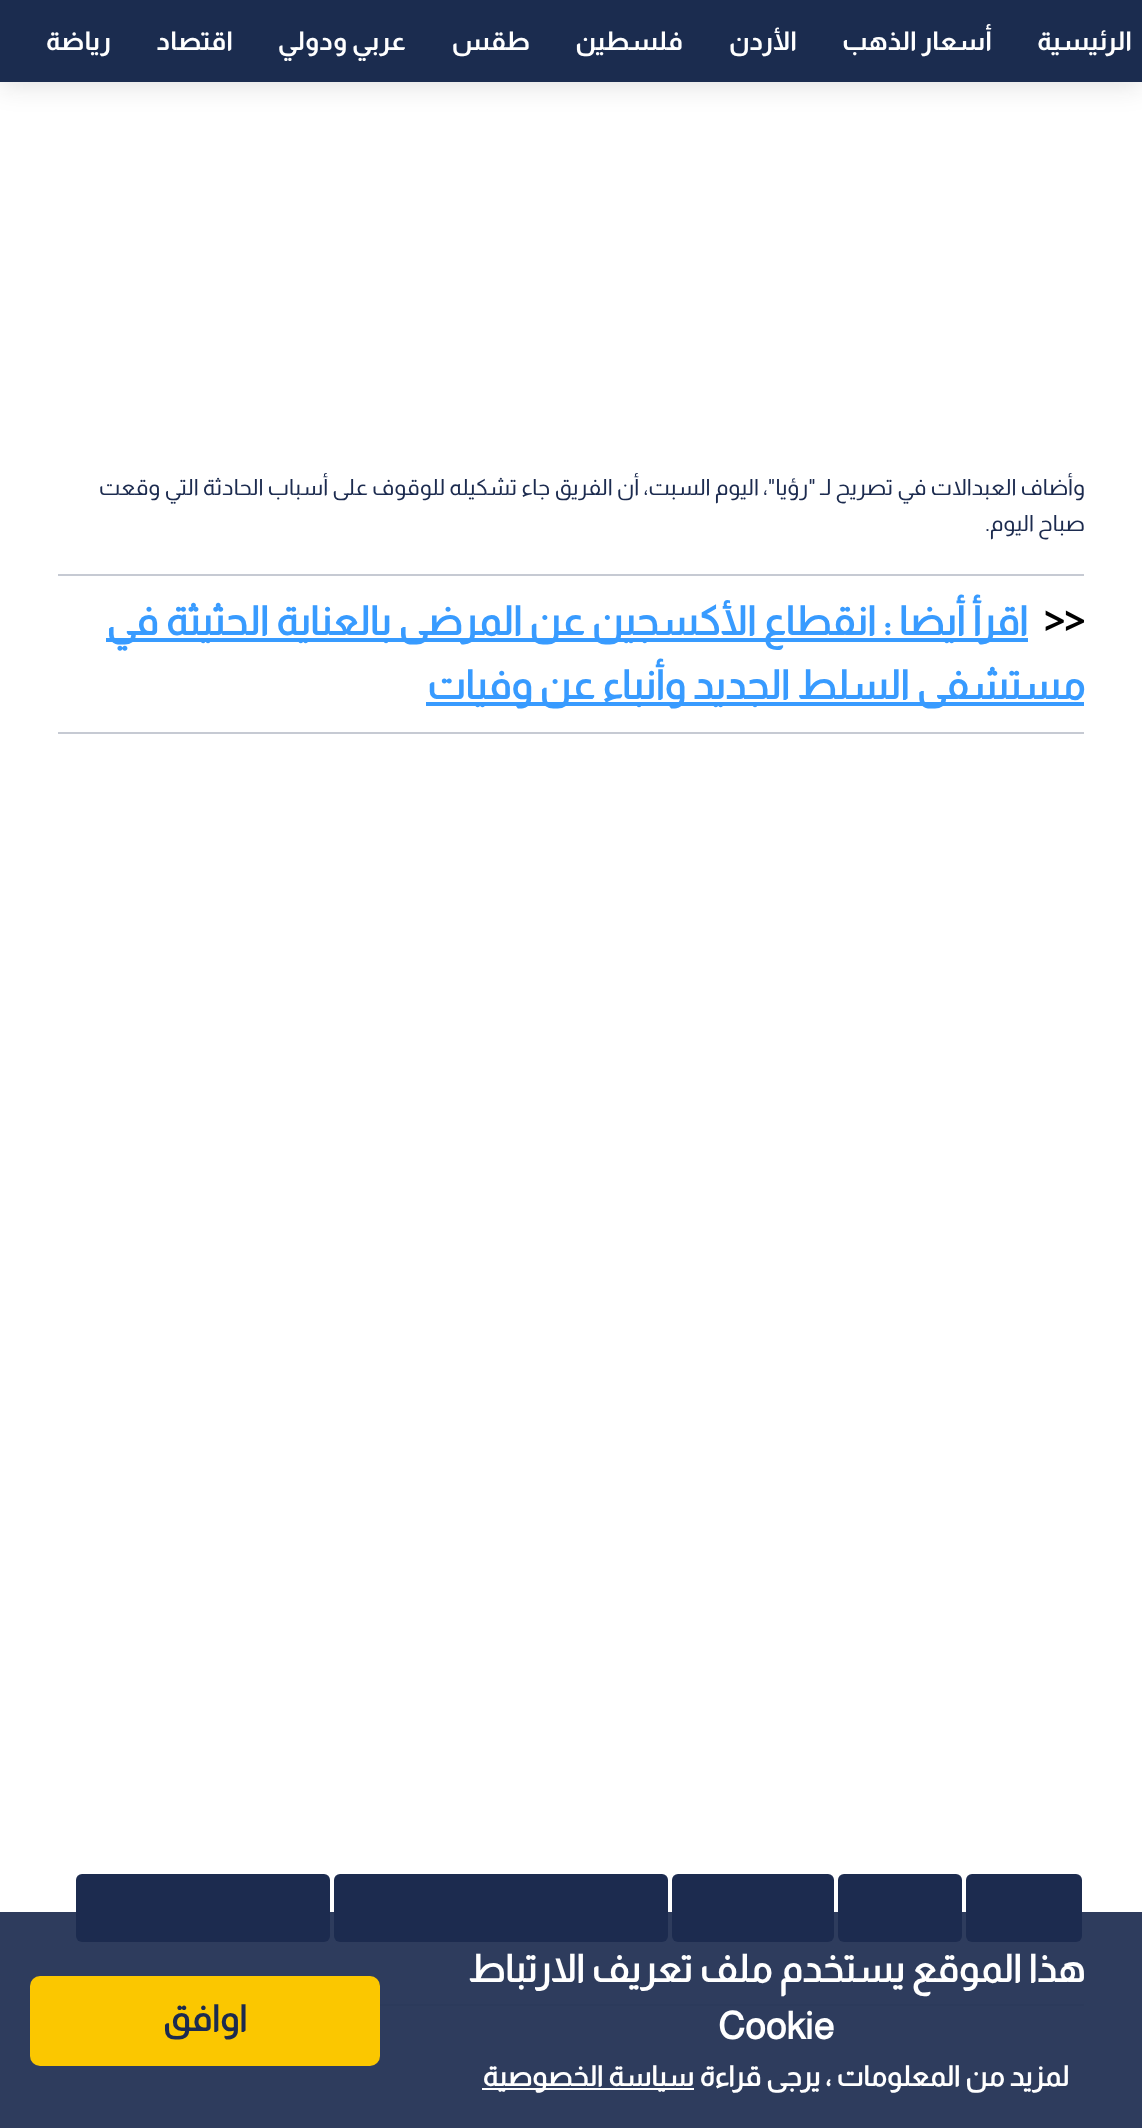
(async () => {
const canvas = document.querySelector("canvas")
canvas.width = 1142
canvas.height = 2128
const c = canvas.getContext("2d")
c.miterLimit = 4
c.fontKerning = "normal"
function T(s,x,y){c.fillText(s,x,y)}
function R(x,y,w,h){c.fillRect(x,y,w,h)}
function Q(x,y,w,h,r){c.beginPath();c.roundRect(x,y,w,h,r);c.fill()}
c.fillStyle="#fff"
R(0,0,1142,2128)
c.fillStyle="#14141426"
c.filter="blur(14px)"
c.beginPath()
c.rect(0,2,1142,82)
c.fill()
c.filter="none"
c.fillStyle="#1b2c4f"
R(0,0,1142,82)
c.direction="rtl"
c.font="bold 26px 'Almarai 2'"
c.fillStyle="#fff"
T("الرئيسية",1132,50)
T("أسعار الذهب",992,50)
T("الأردن",797,50)
T("فلسطين",683,50)
T("طقس",530,50)
T("عربي ودولي",406,50)
T("اقتصاد",233,50)
T("رياضة",111,50)
c.fillStyle="#1c2b4f"
Q(966,1874,116,68,6)
Q(838,1874,124,68,6)
Q(672,1874,162,68,6)
Q(334,1874,334,68,6)
Q(76,1874,254,68,6)
c.fillStyle="#e5e5e5"
R(380,2004,704,2)
c.fillStyle="#1c2b4feb"
R(0,1912,1142,216)
c.font="bold 38px Almarai"
c.fillStyle="#fff"
T("هذا الموقع يستخدم ملف تعريف الارتباط",1085,1982)
c.direction="ltr"
T("Cookie",718,2039)
c.direction="rtl"
c.font="bold 28px Almarai"
T("لمزيد من المعلومات ، يرجى قراءة",1069,2086)
R(482,2088,212,2)
T("سياسة الخصوصية",694,2086)
c.fillStyle="#fbc700"
Q(30,1976,350,90,10)
c.font="bold 36px Almarai"
c.fillStyle="#1c2b4f"
T("اوافق",247,2031)
c.font="22.4px Almarai"
T("وأضاف العبدالات في تصريح لـ \"رؤيا\"، اليوم السبت، أن الفريق جاء تشكيله للوقوف على أسباب الحادثة التي وقعت",1085,495)
T("صباح اليوم.",1085,531)
c.fillStyle="#c6cad3"
R(58,574,1026,2)
c.direction="ltr"
c.font="bold 40px Almarai"
c.fillStyle="#000"
T(">>",1044,635)
c.fillStyle="#389bff"
R(106,638,922,4)
c.direction="rtl"
T("اقرأ أيضا : انقطاع الأكسجين عن المرضى بالعناية الحثيثة في",1028,635)
R(426,702,658,4)
T("مستشفى السلط الجديد وأنباء عن وفيات",1085,699)
c.fillStyle="#c6cad3"
R(58,732,1026,2)
})()
